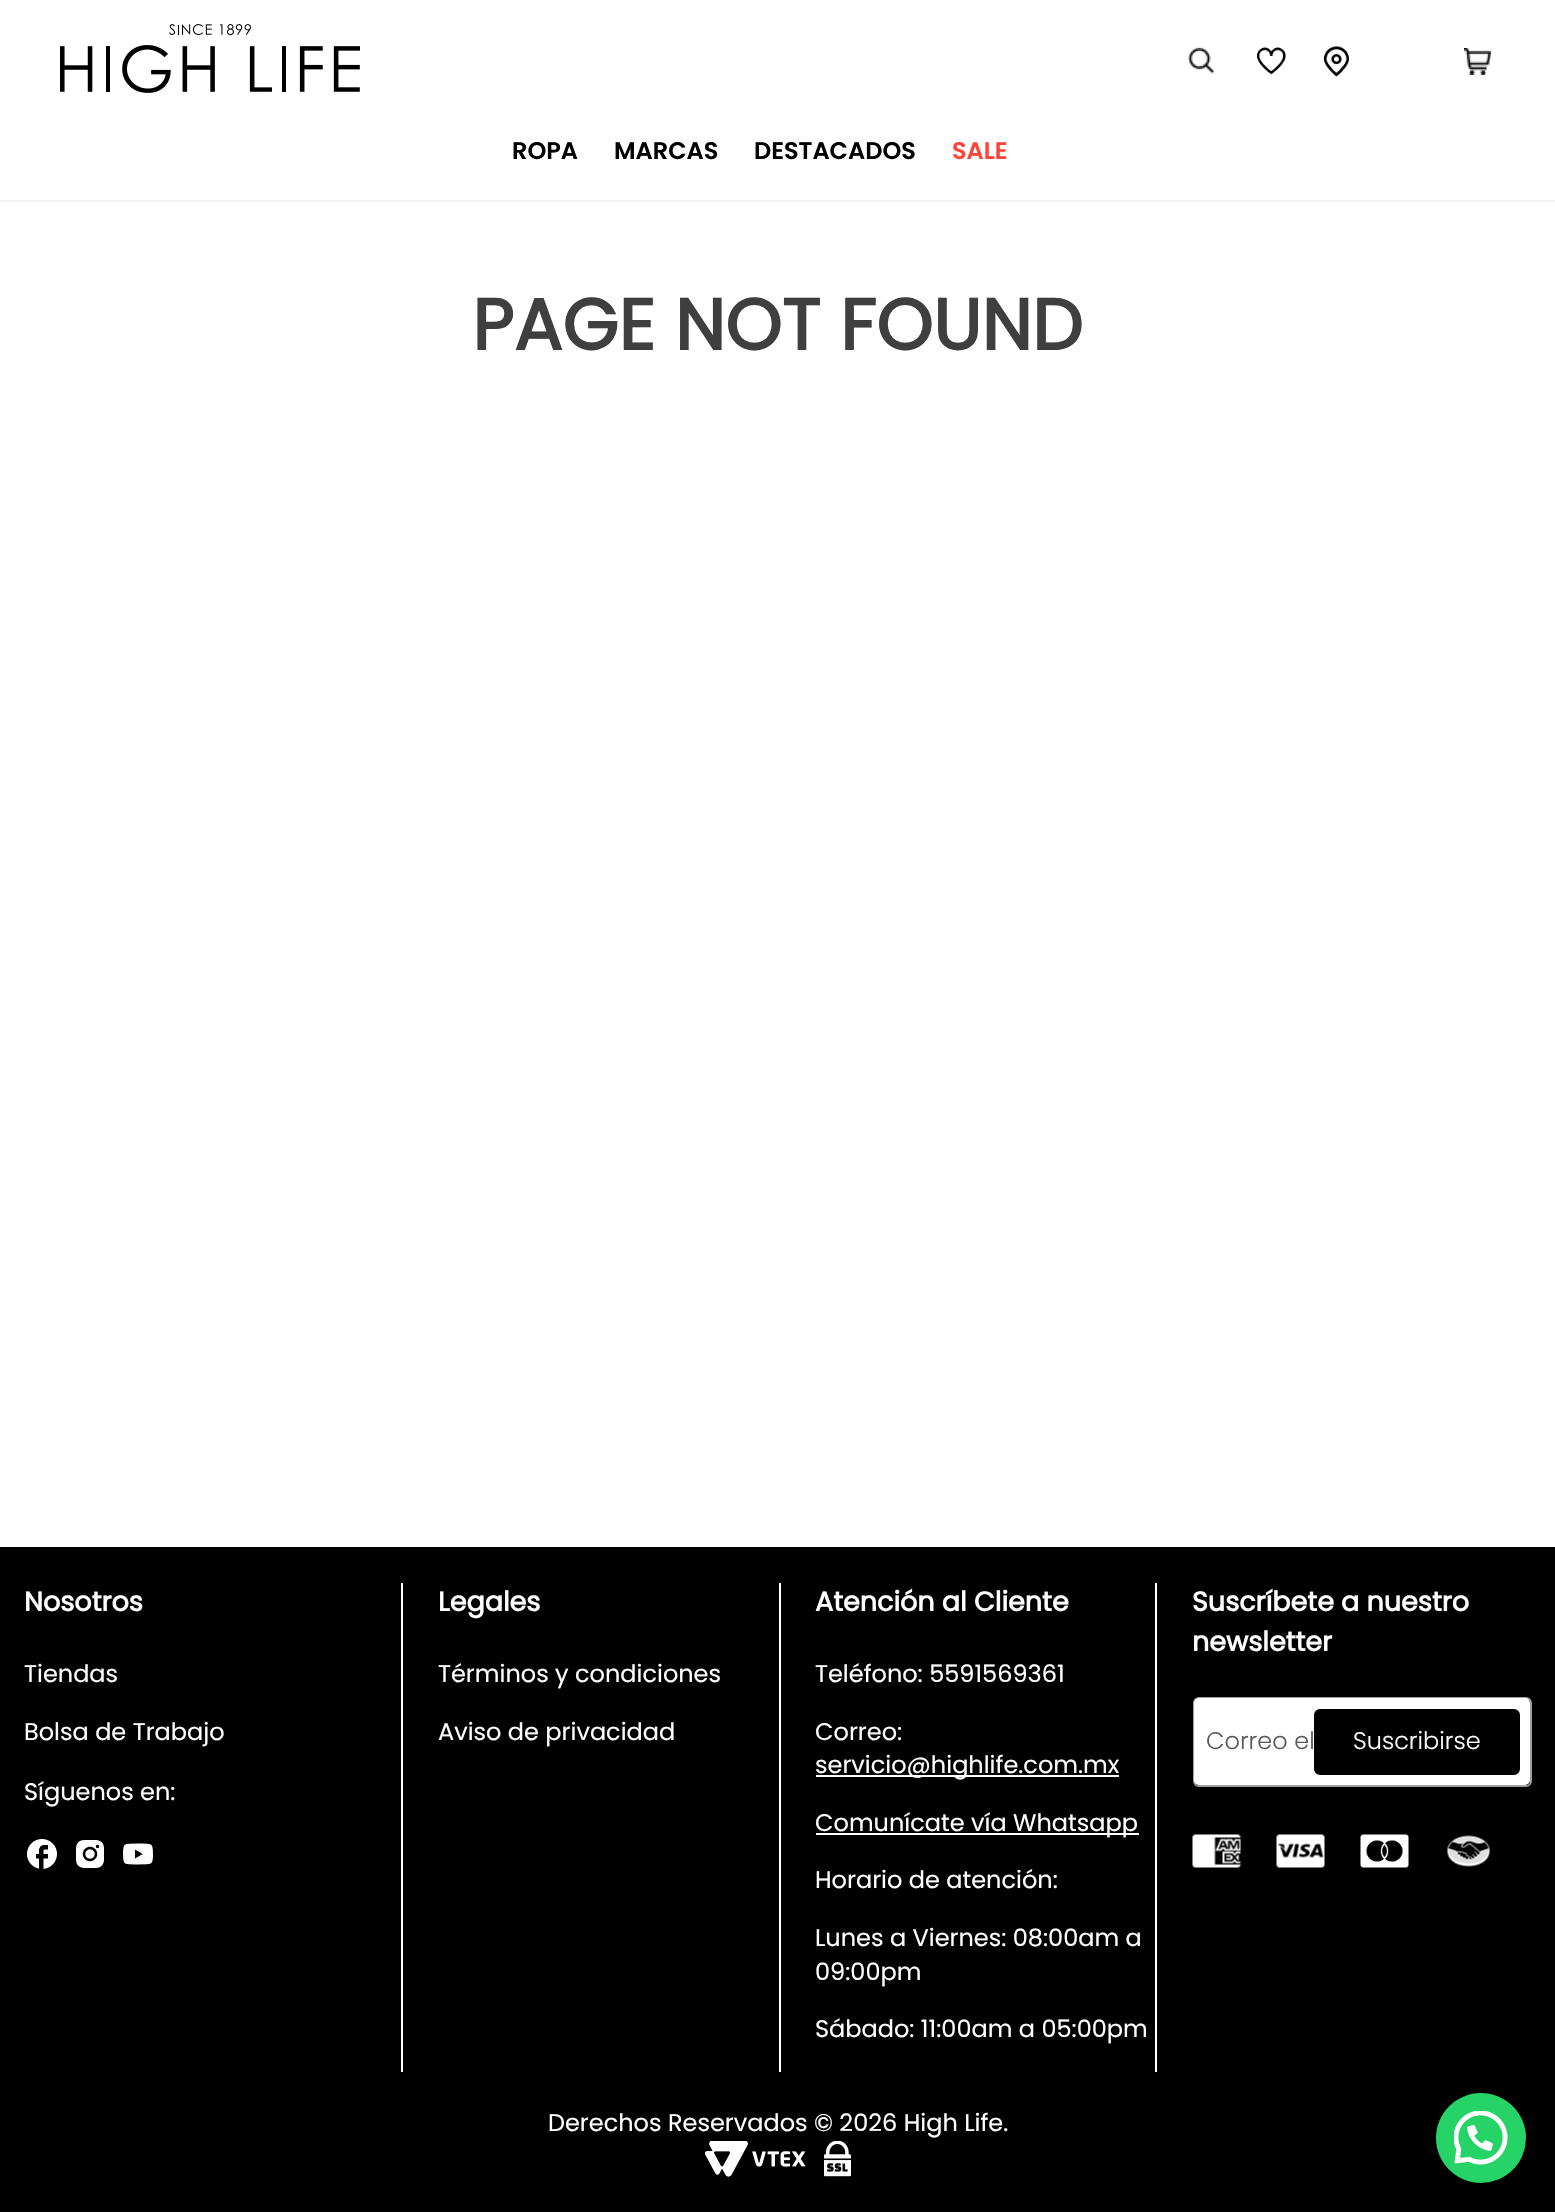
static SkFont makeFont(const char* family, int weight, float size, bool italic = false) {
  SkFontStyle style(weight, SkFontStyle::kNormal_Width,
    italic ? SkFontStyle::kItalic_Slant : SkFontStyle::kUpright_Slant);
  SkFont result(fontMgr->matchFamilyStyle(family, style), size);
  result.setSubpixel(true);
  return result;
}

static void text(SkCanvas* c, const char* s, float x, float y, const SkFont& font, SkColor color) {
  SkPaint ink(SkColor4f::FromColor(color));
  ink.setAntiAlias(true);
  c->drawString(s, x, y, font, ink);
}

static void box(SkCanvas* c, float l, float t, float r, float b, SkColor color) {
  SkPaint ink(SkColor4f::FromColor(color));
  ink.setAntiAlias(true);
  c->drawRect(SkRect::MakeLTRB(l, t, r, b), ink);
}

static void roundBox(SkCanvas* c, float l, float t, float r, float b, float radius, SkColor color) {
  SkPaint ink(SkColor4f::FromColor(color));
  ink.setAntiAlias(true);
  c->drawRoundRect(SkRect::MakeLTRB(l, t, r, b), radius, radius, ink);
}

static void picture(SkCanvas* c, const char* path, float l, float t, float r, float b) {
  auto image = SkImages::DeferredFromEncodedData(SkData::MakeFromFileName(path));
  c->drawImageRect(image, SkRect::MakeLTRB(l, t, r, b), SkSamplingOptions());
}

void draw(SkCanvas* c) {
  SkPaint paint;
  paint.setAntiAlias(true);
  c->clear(0xffffffff);
  box(c, 0, 200, 1555, 202, 0xfff3f3f3);
  picture(c, "img_01.png", 60, 24, 360, 93);
  picture(c, "img_02.png", 1187, 47, 1214, 74);
  picture(c, "img_03.png", 1257, 47, 1286, 75);
  picture(c, "img_04.png", 1323, 46, 1349, 77);
  picture(c, "img_05.png", 1464, 48, 1491, 75);
  SkFont face1 = makeFont("Poppins", 600, 24);
  text(c, "ROPA", 512, 159, face1, 0xff000000);
  text(c, "MARCAS", 614, 159, face1, 0xff000000);
  text(c, "DESTACADOS", 754, 159, face1, 0xff000000);
  text(c, "SALE", 952, 159, face1, 0xffff4438);
  SkFont face2 = makeFont("Poppins", 700, 72);
  text(c, "PAGE NOT FOUND", 472, 350, face2, 0xff3f3f40);
  box(c, 0, 1547, 1555, 2212, 0xff000000);
  SkFont face3 = makeFont("Poppins", 700, 27);
  text(c, "Nosotros", 24, 1611, face3, 0xffffffff);
  SkFont face4 = makeFont("Poppins", 400, 24);
  text(c, "Tiendas", 24, 1682, face4, 0xffffffff);
  text(c, "Bolsa de Trabajo", 24, 1740, face4, 0xffffffff);
  text(c, "Síguenos en:", 24, 1800, face4, 0xffffffff);
  picture(c, "img_06.png", 27, 1839, 57, 1869);
  picture(c, "img_07.png", 76, 1840, 104, 1868);
  picture(c, "img_08.png", 123, 1843, 153, 1865);
  box(c, 401, 1583, 403, 2072, 0xffffffff);
  text(c, "Legales", 438, 1611, face3, 0xffffffff);
  text(c, "Términos y condiciones", 438, 1682, face4, 0xffffffff);
  text(c, "Aviso de privacidad", 438, 1740, face4, 0xffffffff);
  box(c, 779, 1583, 781, 2072, 0xffffffff);
  text(c, "Atención al Cliente", 815, 1611, face3, 0xffffffff);
  text(c, "Teléfono: 5591569361", 815, 1682, face4, 0xffffffff);
  text(c, "Correo:", 815, 1740, face4, 0xffffffff);
  box(c, 816, 1775, 1119, 1777, 0xffffffff);
  text(c, "servicio@highlife.com.mx", 815, 1773, face4, 0xffffffff);
  box(c, 816, 1833, 1139, 1835, 0xffffffff);
  text(c, "Comunícate vía Whatsapp", 815, 1831, face4, 0xffffffff);
  text(c, "Horario de atención:", 815, 1888, face4, 0xffffffff);
  text(c, "Lunes a Viernes: 08:00am a", 815, 1946, face4, 0xffffffff);
  text(c, "09:00pm", 815, 1980, face4, 0xffffffff);
  text(c, "Sábado: 11:00am a 05:00pm", 815, 2037, face4, 0xffffffff);
  box(c, 1155, 1583, 1157, 2072, 0xffffffff);
  text(c, "Suscríbete a nuestro", 1192, 1611, face3, 0xffffffff);
  text(c, "newsletter", 1192, 1651, face3, 0xffffffff);
  paint.setStyle(SkPaint::kStroke_Style);
  paint.setStrokeWidth(2);
  paint.setColor(0xffa0a0a0);
  c->drawRoundRect(SkRect::MakeLTRB(1194, 1698, 1531, 1786), 5, 5, paint);
  roundBox(c, 1194, 1698, 1530, 1785, 5, 0xffffffff);
  SkFont face5 = makeFont("Poppins", 300, 24);
  text(c, "Correo el", 1206, 1749, face5, 0xff5a5a5a);
  paint.setStyle(SkPaint::kFill_Style);
  paint.setColor(0xff000000);
  c->drawRoundRect(SkRect::MakeLTRB(1315.5f, 1710.5f, 1518.5f, 1773.5f), 4.5f, 4.5f, paint);
  paint.setStyle(SkPaint::kStroke_Style);
  paint.setStrokeWidth(3);
  c->drawRoundRect(SkRect::MakeLTRB(1315.5f, 1710.5f, 1518.5f, 1773.5f), 4.5f, 4.5f, paint);
  text(c, "Suscribirse", 1353, 1749, face5, 0xffffffff);
  picture(c, "img_09.png", 1192, 1834, 1241, 1868);
  picture(c, "img_10.png", 1276, 1834, 1325, 1868);
  picture(c, "img_11.png", 1360, 1834, 1409, 1868);
  picture(c, "img_12.png", 1447, 1835, 1490, 1867);
  text(c, "Derechos Reservados © 2026 High Life.", 548, 2131, face4, 0xffffffff);
  picture(c, "img_13.png", 705, 2141, 806, 2177);
  picture(c, "img_14.png", 824, 2141, 851, 2177);
  paint.setStyle(SkPaint::kFill_Style);
  paint.setColor(0xff25d366);
  c->drawCircle(1481, 2138, 45, paint);
  picture(c, "img_15.png", 1454, 2111, 1508, 2165);
}
